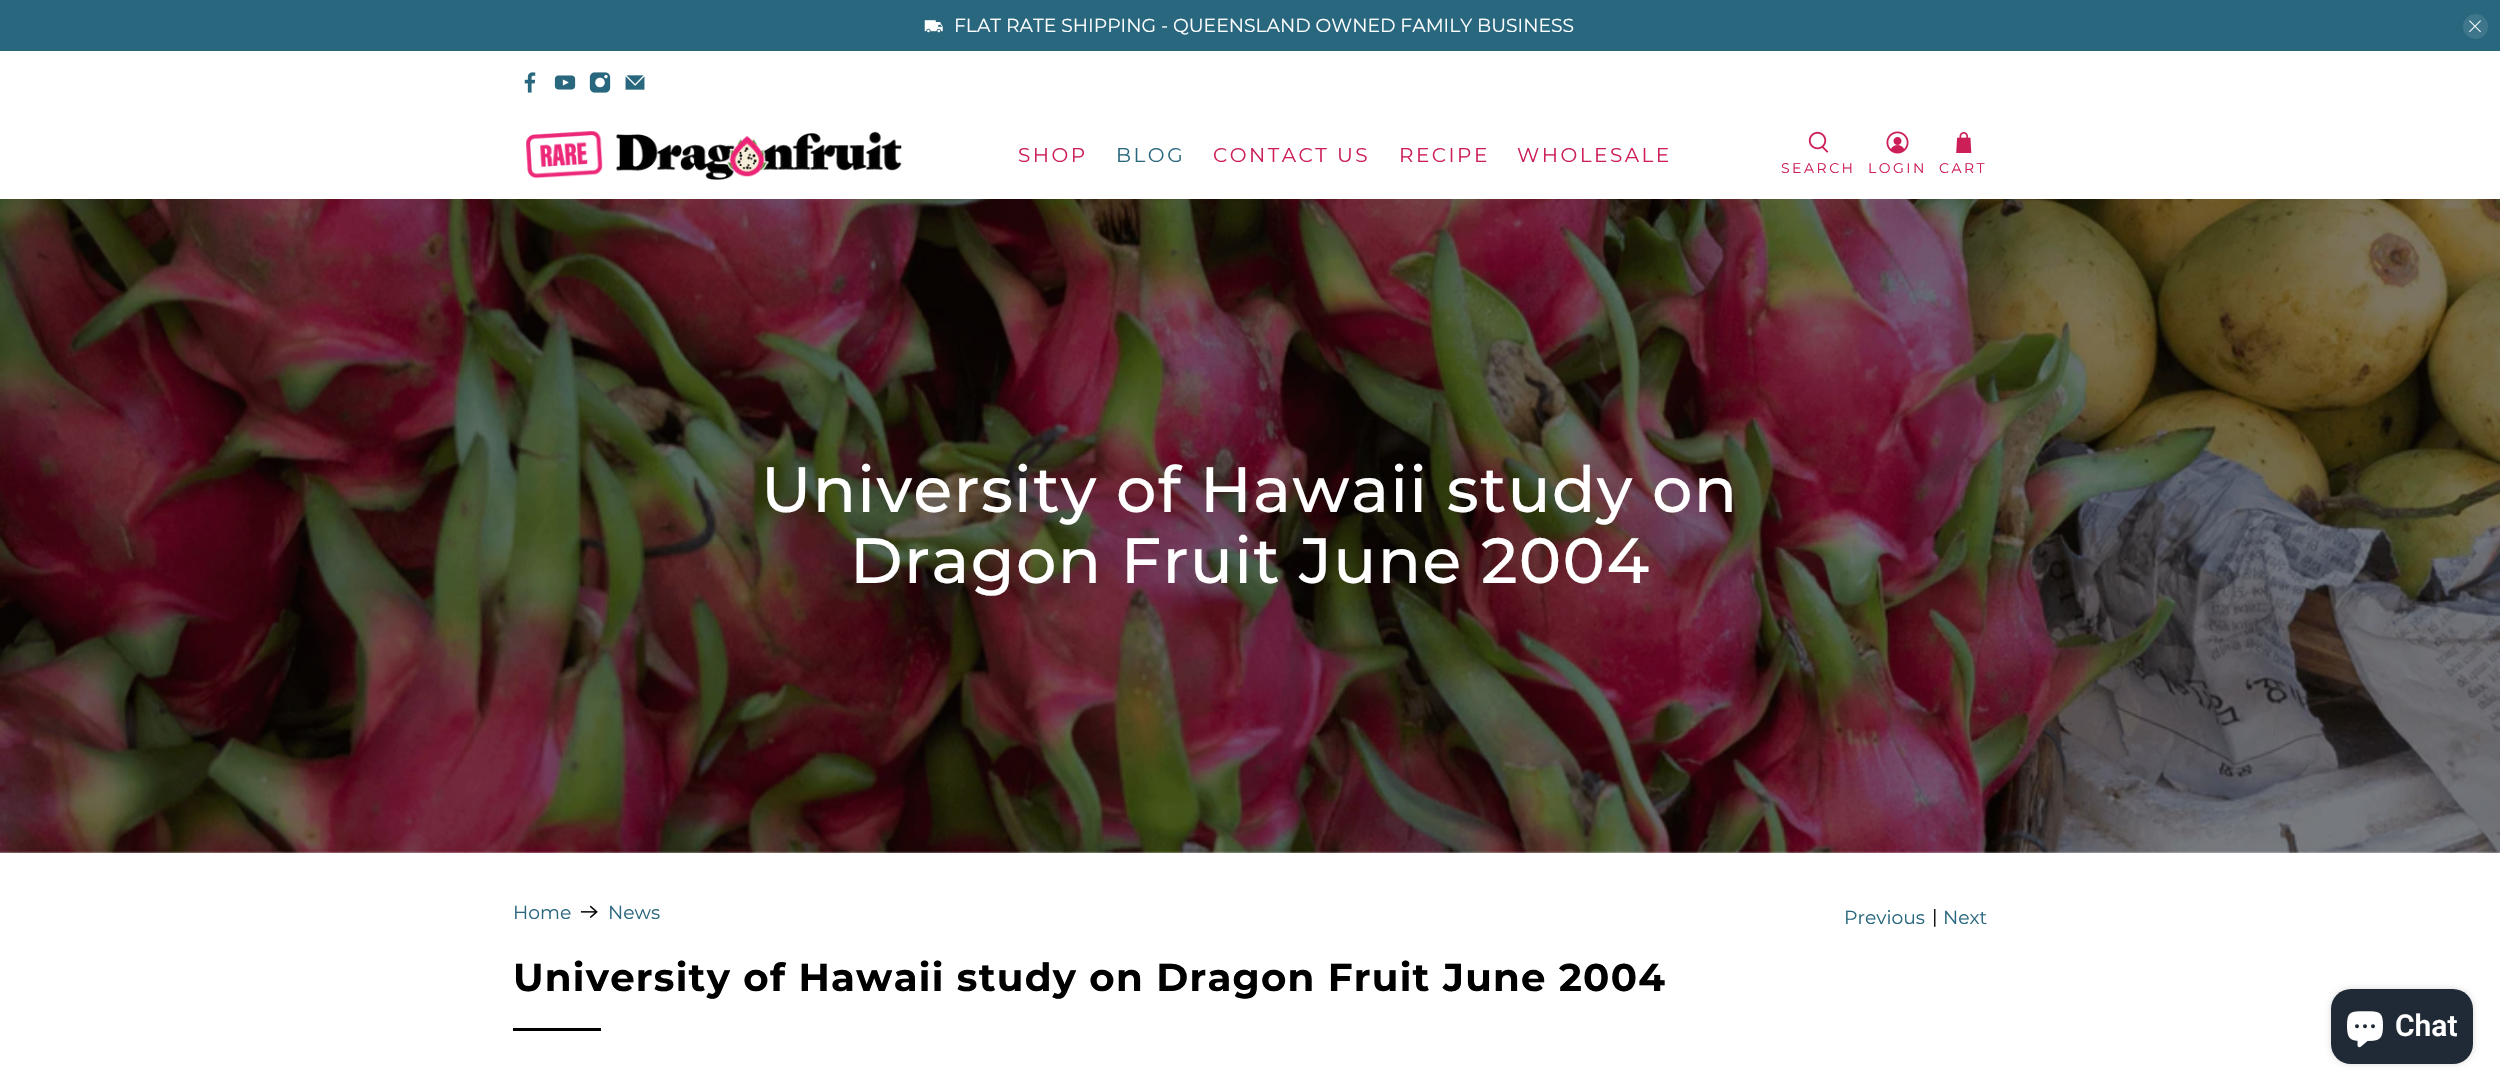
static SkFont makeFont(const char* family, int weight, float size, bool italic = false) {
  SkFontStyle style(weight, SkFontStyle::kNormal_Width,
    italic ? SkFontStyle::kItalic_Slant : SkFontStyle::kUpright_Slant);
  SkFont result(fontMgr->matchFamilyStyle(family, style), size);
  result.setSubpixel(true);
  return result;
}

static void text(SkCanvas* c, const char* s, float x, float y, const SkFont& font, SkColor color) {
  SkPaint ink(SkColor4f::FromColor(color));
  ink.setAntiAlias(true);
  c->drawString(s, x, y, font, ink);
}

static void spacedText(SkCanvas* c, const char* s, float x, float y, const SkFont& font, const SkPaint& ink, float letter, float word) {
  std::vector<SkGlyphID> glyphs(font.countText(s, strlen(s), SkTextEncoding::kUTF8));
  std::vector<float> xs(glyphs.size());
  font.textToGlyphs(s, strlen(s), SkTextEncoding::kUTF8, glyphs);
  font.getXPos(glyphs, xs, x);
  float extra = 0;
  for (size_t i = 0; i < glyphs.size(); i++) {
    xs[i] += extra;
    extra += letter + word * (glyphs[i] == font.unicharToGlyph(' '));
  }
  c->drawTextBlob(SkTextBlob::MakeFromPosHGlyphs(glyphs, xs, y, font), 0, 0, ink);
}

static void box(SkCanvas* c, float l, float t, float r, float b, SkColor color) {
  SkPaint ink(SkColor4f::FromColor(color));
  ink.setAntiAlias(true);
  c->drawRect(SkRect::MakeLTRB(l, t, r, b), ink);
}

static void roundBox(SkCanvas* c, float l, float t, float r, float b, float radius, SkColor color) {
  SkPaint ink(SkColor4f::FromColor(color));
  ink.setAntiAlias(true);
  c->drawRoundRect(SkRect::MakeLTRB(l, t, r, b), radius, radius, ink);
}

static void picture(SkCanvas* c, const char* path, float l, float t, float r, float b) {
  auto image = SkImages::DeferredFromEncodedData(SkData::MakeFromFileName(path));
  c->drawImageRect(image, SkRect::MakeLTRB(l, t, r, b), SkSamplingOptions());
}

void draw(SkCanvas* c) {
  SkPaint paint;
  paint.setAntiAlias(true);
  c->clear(0xffffffff);
  box(c, 0, 0, 2500, 51, 0xff29677e);
  picture(c, "img_01.png", 924, 20, 943, 33);
  SkFont face1 = makeFont("Montserrat", 400, 18.75f);
  text(c, "FLAT RATE SHIPPING - QUEENSLAND OWNED FAMILY BUSINESS", 954, 32, face1, 0xffffffff);
  paint.setColor(0xff3e768b);
  c->drawCircle(2475.5f, 26.5f, 12.5f, paint);
  picture(c, "img_02.png", 2469, 20, 2481, 33);
  picture(c, "img_03.png", 524, 72, 536, 93);
  picture(c, "img_04.png", 554, 75, 576, 90);
  picture(c, "img_05.png", 589, 72, 611, 93);
  picture(c, "img_06.png", 625, 75, 645, 90);
  picture(c, "img_07.png", 526, 131, 902, 180);
  SkFont face2 = makeFont("Montserrat", 400, 20);
  paint.setColor(0xffcc1f58);
  spacedText(c, "SHOP", 1018, 162, face2, paint, 2.5f, 0);
  paint.setColor(0xff29677e);
  spacedText(c, "BLOG", 1116, 162, face2, paint, 2.5f, 0);
  paint.setColor(0xffcc1f58);
  spacedText(c, "CONTACT US", 1213, 162, face2, paint, 2.5f, 0);
  spacedText(c, "RECIPE", 1399, 162, face2, paint, 2.5f, 0);
  spacedText(c, "WHOLESALE", 1517, 162, face2, paint, 2.5f, 0);
  picture(c, "img_08.png", 1808, 131, 1829, 153);
  SkFont face3 = makeFont("Montserrat", 400, 14);
  spacedText(c, "SEARCH", 1781, 173, face3, paint, 2.5f, 0);
  picture(c, "img_09.png", 1886, 131, 1909, 154);
  spacedText(c, "LOGIN", 1868, 173, face3, paint, 2.5f, 0);
  picture(c, "img_10.png", 1956, 132, 1972, 153);
  spacedText(c, "CART", 1939, 173, face3, paint, 2.5f, 0);
  picture(c, "img_11.png", 0, 199, 2500, 853);
  SkFont face4 = makeFont("Montserrat", 500, 63.75f);
  paint.setColor(0xffffffff);
  spacedText(c, "University of Hawaii study on", 761, 512, face4, paint, 1.25f, 0);
  spacedText(c, "Dragon Fruit June 2004", 850, 583, face4, paint, 1.25f, 0);
  text(c, "Home", 513, 919, face1, 0xff29677e);
  picture(c, "img_12.png", 580, 905, 598, 918);
  text(c, "News", 608, 919, face1, 0xff29677e);
  text(c, "Previous", 1844, 924, face1, 0xff29677e);
  text(c, "|", 1932, 923, face1, 0xff000000);
  text(c, "Next", 1943, 924, face1, 0xff29677e);
  SkFont face5 = makeFont("Montserrat", 700, 38.75f);
  paint.setColor(0xff000000);
  spacedText(c, "University of Hawaii study on Dragon Fruit June 2004", 513, 991, face5, paint, 1.25f, 0);
  box(c, 513, 1028, 601, 1031, 0xff000000);
  paint.setColor(0x26000000);
  paint.setMaskFilter(SkMaskFilter::MakeBlur(kNormal_SkBlurStyle, 3));
  c->drawRoundRect(SkRect::MakeLTRB(2331, 989, 2473, 1064), 20, 20, paint);
  paint.setMaskFilter(nullptr);
  roundBox(c, 2331, 989, 2473, 1064, 20, 0xff202a36);
  picture(c, "img_13.png", 2347, 1011, 2383, 1048);
  SkFont face6 = makeFont("Roboto", 600, 30);
  text(c, "Chat", 2395, 1036, face6, 0xffffffff);
}
